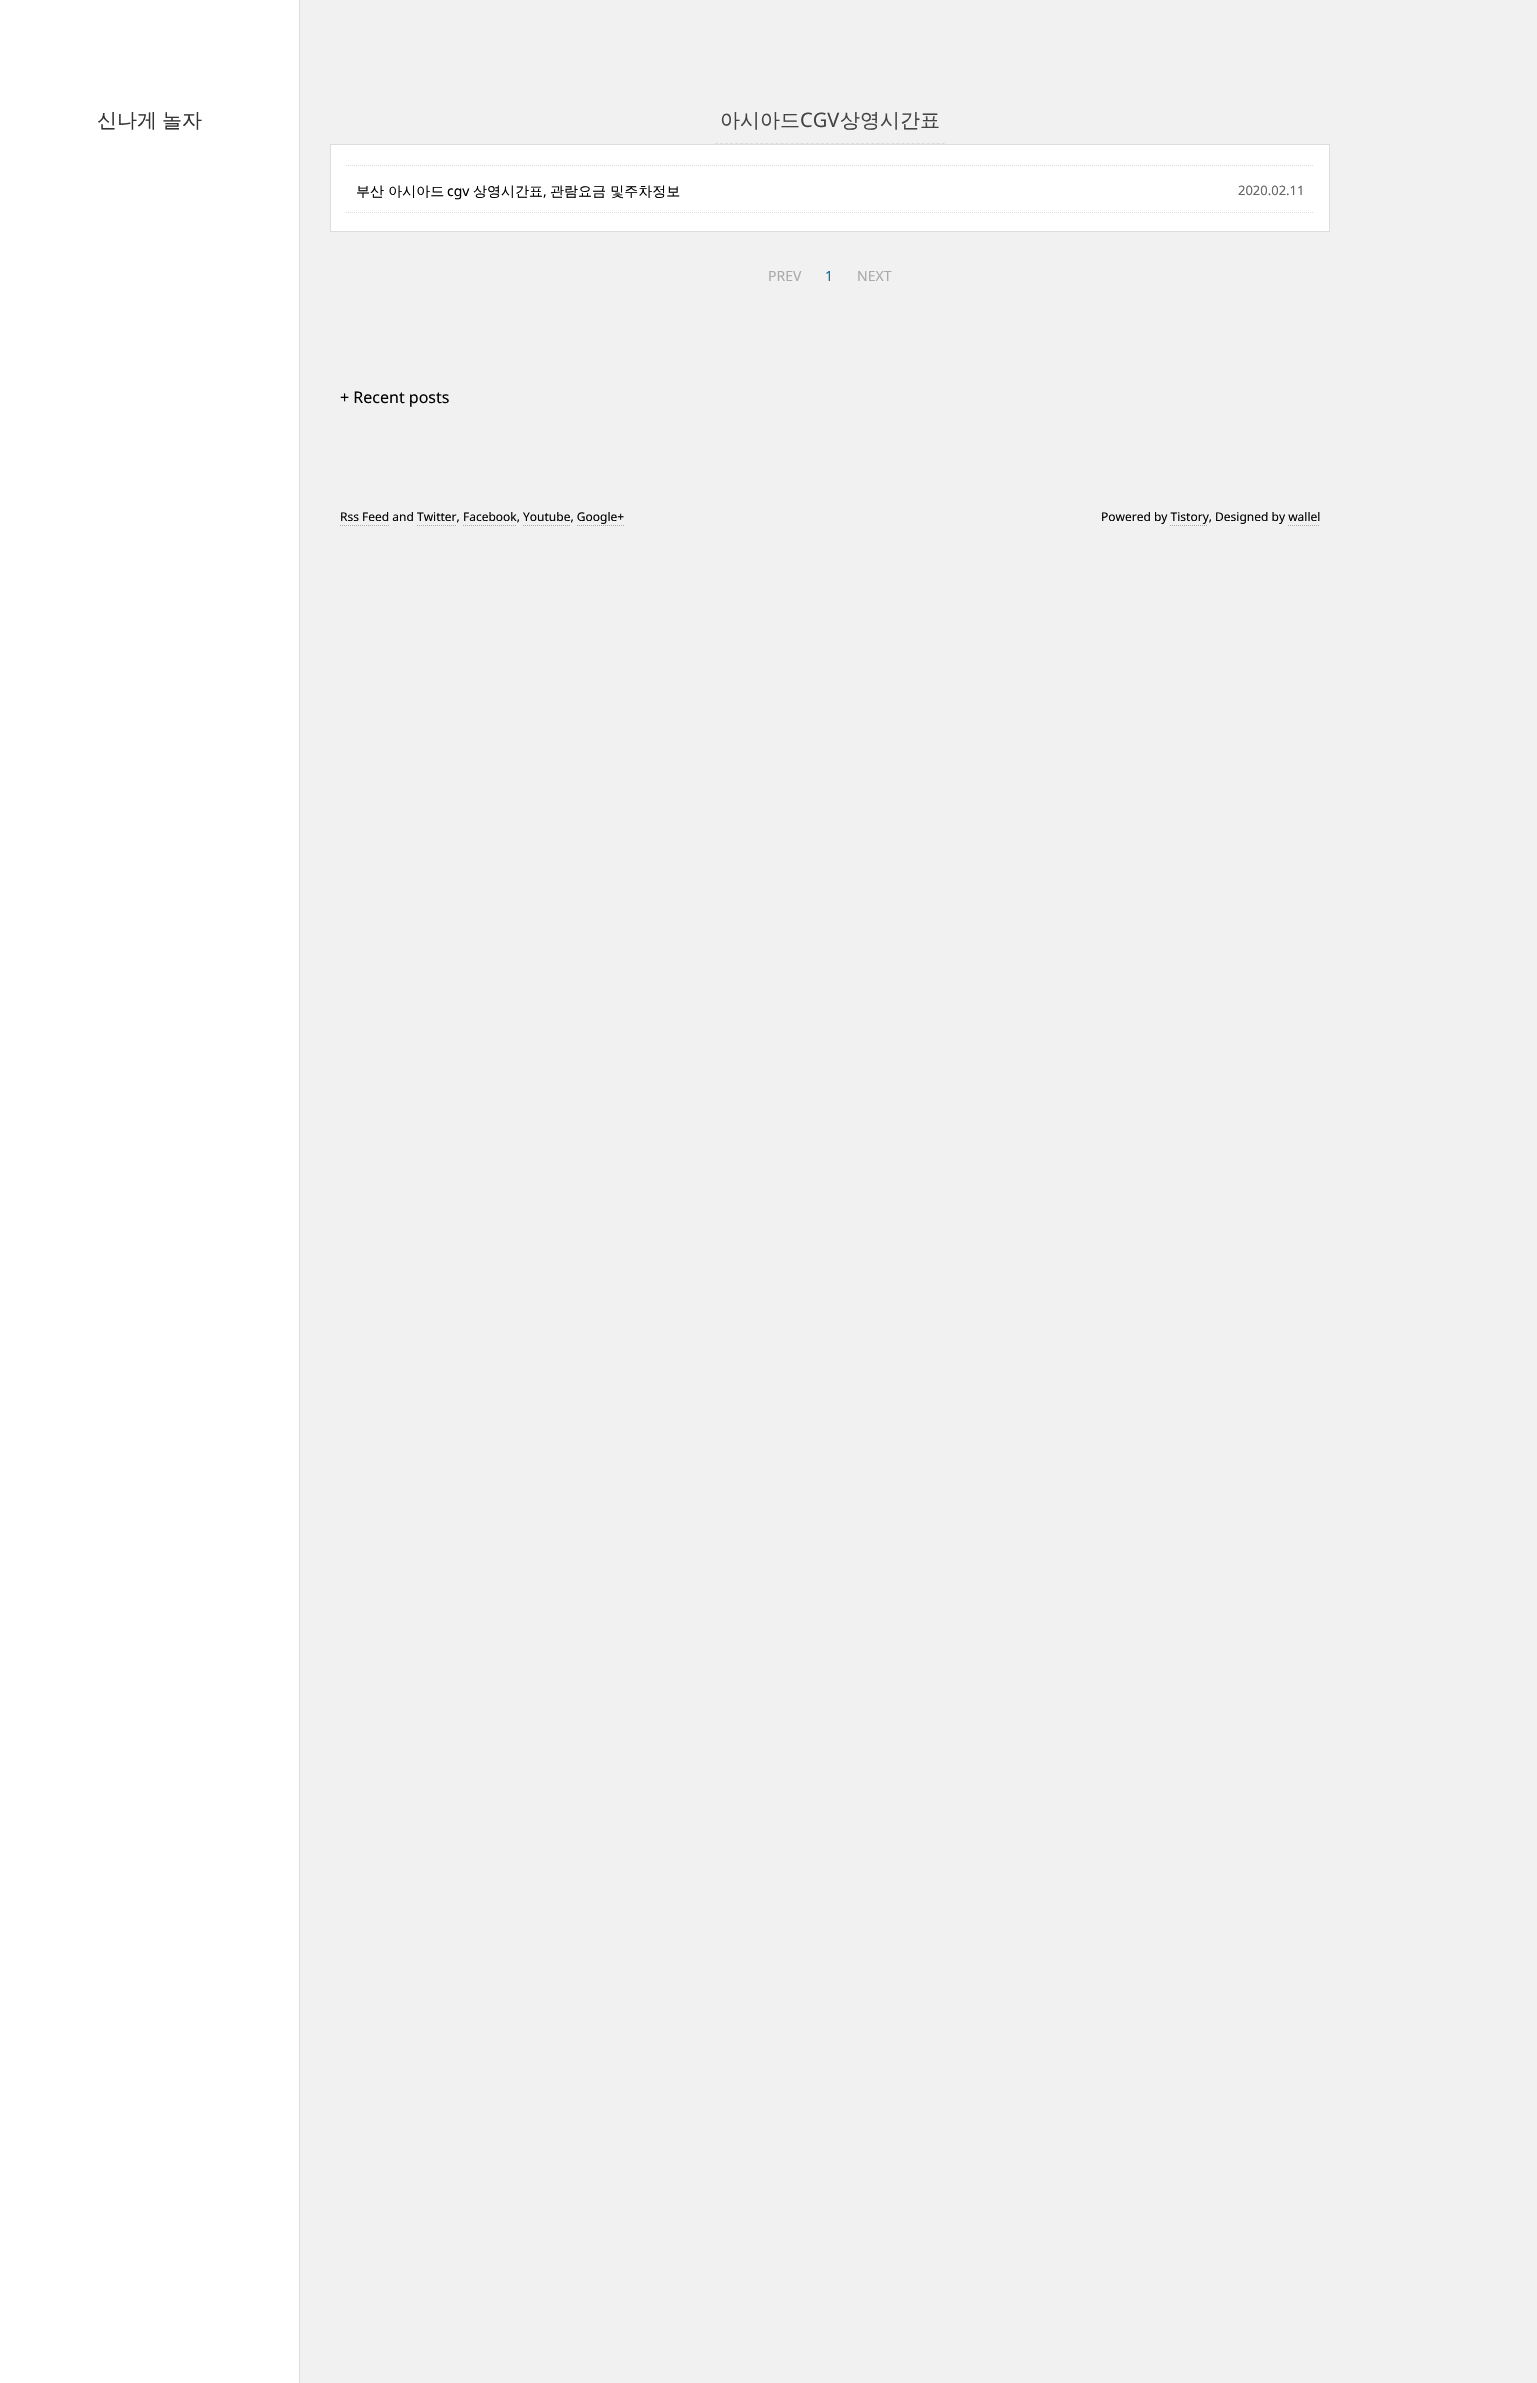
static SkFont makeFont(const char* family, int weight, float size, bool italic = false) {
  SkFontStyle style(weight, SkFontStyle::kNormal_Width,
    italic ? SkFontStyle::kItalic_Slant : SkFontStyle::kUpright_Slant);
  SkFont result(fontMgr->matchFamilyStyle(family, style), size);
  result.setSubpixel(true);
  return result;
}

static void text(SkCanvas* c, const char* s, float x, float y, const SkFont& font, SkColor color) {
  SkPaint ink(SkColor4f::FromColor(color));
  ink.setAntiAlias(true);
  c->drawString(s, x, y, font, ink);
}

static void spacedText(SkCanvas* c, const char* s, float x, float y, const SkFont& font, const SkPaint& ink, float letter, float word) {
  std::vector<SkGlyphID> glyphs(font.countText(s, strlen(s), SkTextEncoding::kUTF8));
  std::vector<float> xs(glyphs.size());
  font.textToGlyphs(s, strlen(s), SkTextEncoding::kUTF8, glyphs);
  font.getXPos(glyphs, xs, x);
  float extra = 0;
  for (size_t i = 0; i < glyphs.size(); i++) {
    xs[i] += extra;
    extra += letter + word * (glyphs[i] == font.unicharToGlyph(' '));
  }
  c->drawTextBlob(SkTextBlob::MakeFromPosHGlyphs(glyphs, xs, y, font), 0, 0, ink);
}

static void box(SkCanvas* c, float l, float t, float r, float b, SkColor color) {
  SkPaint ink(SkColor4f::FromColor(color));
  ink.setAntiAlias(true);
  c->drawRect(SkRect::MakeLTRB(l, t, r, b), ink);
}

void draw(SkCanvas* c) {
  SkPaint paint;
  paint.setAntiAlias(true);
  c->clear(0xfff1f1f1);
  box(c, 0, 0, 299, 2383, 0xffffffff);
  box(c, 299, 0, 300, 2383, 0xffdddddd);
  SkFont face1 = makeFont("WenQuanYi Zen Hei", 500, 20);
  paint.setColor(0xff333333);
  spacedText(c, "신나게 놀자", 97, 127, face1, paint, 0, -1);
  paint.setStyle(SkPaint::kStroke_Style);
  paint.setStrokeWidth(1);
  paint.setColor(0xffdddddd);
  paint.setPathEffect(SkDashPathEffect::Make({{3, 2.04f}}, 0));
  c->drawPath(SkPathBuilder().moveTo(715, 143.5f).lineTo(945, 143.5f).detach(), paint);
  paint.setPathEffect(nullptr);
  text(c, "아시아드", 720, 127, face1, 0xff444444);
  SkFont face2 = makeFont("Noto Sans", 400, 20);
  text(c, "CGV", 800, 127, face2, 0xff444444);
  text(c, "상영시간표", 840, 127, face1, 0xff444444);
  paint.setStyle(SkPaint::kFill_Style);
  paint.setColor(0xffffffff);
  c->drawRect(SkRect::MakeLTRB(330.5f, 144.5f, 1329.5f, 231.5f), paint);
  paint.setStyle(SkPaint::kStroke_Style);
  paint.setColor(0xffdddddd);
  c->drawRect(SkRect::MakeLTRB(330.5f, 144.5f, 1329.5f, 231.5f), paint);
  paint.setPathEffect(SkDashPathEffect::Make({{1, 1}}, 0));
  c->drawPath(SkPathBuilder().moveTo(346, 165.5f).lineTo(1314, 165.5f).detach(), paint);
  paint.setPathEffect(nullptr);
  paint.setPathEffect(SkDashPathEffect::Make({{1, 1}}, 0));
  c->drawPath(SkPathBuilder().moveTo(346, 212.5f).lineTo(1314, 212.5f).detach(), paint);
  paint.setPathEffect(nullptr);
  SkFont face3 = makeFont("WenQuanYi Zen Hei", 500, 14);
  text(c, "부산 아시아드", 356, 196, face3, 0xff000000);
  SkFont face4 = makeFont("Noto Sans", 400, 14);
  text(c, "cgv", 447, 196, face4, 0xff000000);
  text(c, "상영시간표", 473, 196, face3, 0xff000000);
  text(c, ",", 543, 196, face4, 0xff000000);
  text(c, "관람요금 및주차정보", 550, 196, face3, 0xff000000);
  SkFont face5 = makeFont("Noto Sans", 400, 13);
  text(c, "2020.02.11", 1238, 195, face5, 0xff666666);
  text(c, "PREV", 768, 281, face4, 0xffaaaaaa);
  text(c, "1", 825, 281, face4, 0xff0077aa);
  text(c, "NEXT", 857, 281, face4, 0xffaaaaaa);
  SkFont face6 = makeFont("Noto Sans", 400, 16);
  text(c, "+ Recent posts", 340, 403, face6, 0xff000000);
  SkFont face7 = makeFont("Noto Sans", 400, 12);
  text(c, "Rss Feed and Twitter, Facebook, Youtube, Google+", 340, 521, face7, 0xff000000);
  paint.setColor(0xffaaaaaa);
  paint.setPathEffect(SkDashPathEffect::Make({{1, 1}}, 0));
  c->drawPath(SkPathBuilder().moveTo(340, 525.5f).lineTo(389, 525.5f).detach(), paint);
  paint.setPathEffect(nullptr);
  paint.setPathEffect(SkDashPathEffect::Make({{1, 1}}, 0));
  c->drawPath(SkPathBuilder().moveTo(417, 525.5f).lineTo(457, 525.5f).detach(), paint);
  paint.setPathEffect(nullptr);
  paint.setPathEffect(SkDashPathEffect::Make({{1, 1}}, 0));
  c->drawPath(SkPathBuilder().moveTo(463, 525.5f).lineTo(517, 525.5f).detach(), paint);
  paint.setPathEffect(nullptr);
  paint.setPathEffect(SkDashPathEffect::Make({{1, 1}}, 0));
  c->drawPath(SkPathBuilder().moveTo(523, 525.5f).lineTo(570, 525.5f).detach(), paint);
  paint.setPathEffect(nullptr);
  paint.setPathEffect(SkDashPathEffect::Make({{1, 1}}, 0));
  c->drawPath(SkPathBuilder().moveTo(577, 525.5f).lineTo(624, 525.5f).detach(), paint);
  paint.setPathEffect(nullptr);
  text(c, "Powered by Tistory, Designed by wallel", 1101, 521, face7, 0xff000000);
  paint.setPathEffect(SkDashPathEffect::Make({{1, 1}}, 0));
  c->drawPath(SkPathBuilder().moveTo(1170, 525.5f).lineTo(1208, 525.5f).detach(), paint);
  paint.setPathEffect(nullptr);
  paint.setPathEffect(SkDashPathEffect::Make({{1, 1}}, 0));
  c->drawPath(SkPathBuilder().moveTo(1288, 525.5f).lineTo(1320, 525.5f).detach(), paint);
  paint.setPathEffect(nullptr);
}
